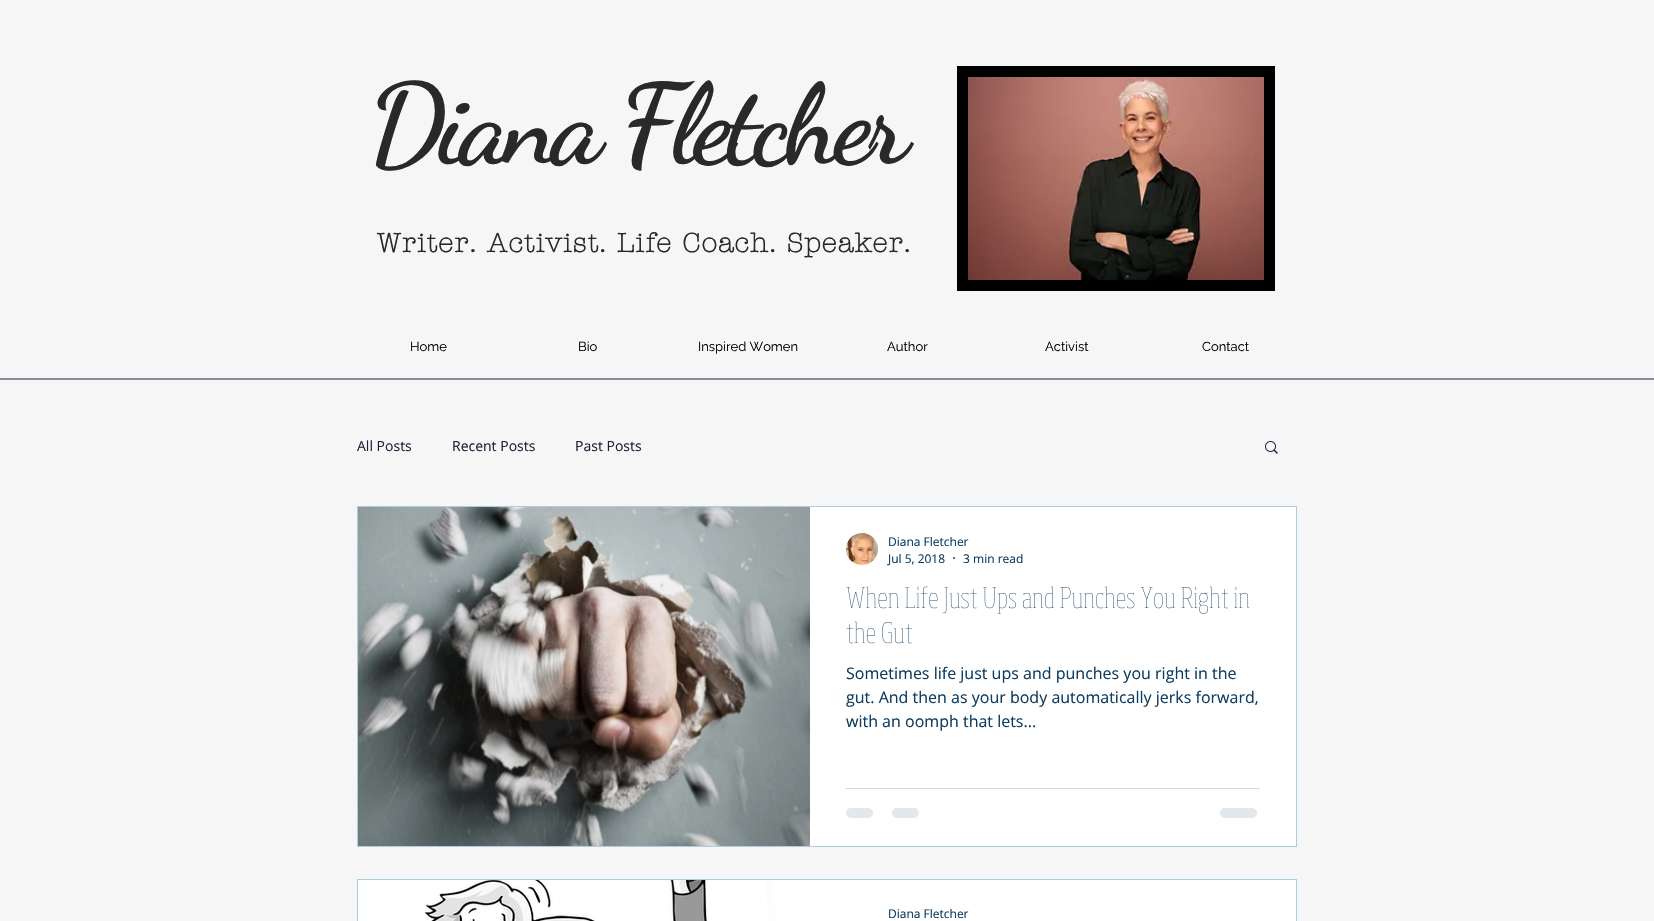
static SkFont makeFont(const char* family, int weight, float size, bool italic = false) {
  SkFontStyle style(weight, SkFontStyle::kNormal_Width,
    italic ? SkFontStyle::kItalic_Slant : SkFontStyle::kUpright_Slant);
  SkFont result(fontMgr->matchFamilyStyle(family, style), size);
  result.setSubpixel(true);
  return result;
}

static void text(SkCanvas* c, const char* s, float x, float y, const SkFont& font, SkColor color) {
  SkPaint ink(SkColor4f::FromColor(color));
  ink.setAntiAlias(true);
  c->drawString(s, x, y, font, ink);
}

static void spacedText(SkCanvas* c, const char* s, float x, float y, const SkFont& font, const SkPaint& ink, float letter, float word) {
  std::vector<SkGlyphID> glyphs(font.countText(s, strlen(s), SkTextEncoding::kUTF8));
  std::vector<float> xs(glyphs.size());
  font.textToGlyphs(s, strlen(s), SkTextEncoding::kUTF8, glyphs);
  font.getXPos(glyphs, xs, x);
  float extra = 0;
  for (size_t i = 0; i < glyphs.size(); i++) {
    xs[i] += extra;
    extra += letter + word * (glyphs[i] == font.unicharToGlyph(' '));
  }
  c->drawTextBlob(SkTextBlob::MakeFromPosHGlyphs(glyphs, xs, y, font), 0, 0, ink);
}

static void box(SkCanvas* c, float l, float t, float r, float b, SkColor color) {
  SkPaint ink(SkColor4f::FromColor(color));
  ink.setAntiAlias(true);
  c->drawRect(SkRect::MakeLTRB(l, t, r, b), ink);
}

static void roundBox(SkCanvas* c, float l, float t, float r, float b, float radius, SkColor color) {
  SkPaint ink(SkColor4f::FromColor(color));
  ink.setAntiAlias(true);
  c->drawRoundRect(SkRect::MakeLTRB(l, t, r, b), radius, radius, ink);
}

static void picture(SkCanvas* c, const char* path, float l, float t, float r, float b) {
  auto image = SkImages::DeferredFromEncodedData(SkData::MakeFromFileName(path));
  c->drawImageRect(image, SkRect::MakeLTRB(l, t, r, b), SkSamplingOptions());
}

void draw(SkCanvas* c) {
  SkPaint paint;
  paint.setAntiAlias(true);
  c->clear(0xfff6f6f6);
  SkFont face1 = makeFont("Dancing Script", 700, 112);
  paint.setColor(0xff292929);
  spacedText(c, "Diana Fletcher", 368, 161, face1, paint, -5.6f, 0);
  box(c, 957, 66, 1275, 291, 0xff000000);
  picture(c, "img_01.png", 968, 77, 1264, 280);
  SkFont face2 = makeFont("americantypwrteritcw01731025", 700, 27);
  spacedText(c, "Writer. Activist. Life Coach. Speaker.", 377, 252, face2, paint, 1.35f, 0);
  SkFont face3 = makeFont("Raleway", 400, 13);
  text(c, "Home", 410, 351, face3, 0xff000000);
  text(c, "Bio", 578, 351, face3, 0xff000000);
  text(c, "Inspired Women", 698, 351, face3, 0xff000000);
  text(c, "Author", 887, 351, face3, 0xff000000);
  text(c, "Activist", 1045, 351, face3, 0xff000000);
  text(c, "Contact", 1202, 351, face3, 0xff000000);
  box(c, 0, 378, 1654, 380, 0xff8f8898);
  SkFont face4 = makeFont("Open Sans", 400, 14);
  text(c, "All Posts", 357, 451, face4, 0xff281a39);
  text(c, "Recent Posts", 452, 451, face4, 0xff281a39);
  text(c, "Past Posts", 575, 451, face4, 0xff281a39);
  picture(c, "img_02.png", 1265, 441, 1278, 454);
  paint.setStyle(SkPaint::kStroke_Style);
  paint.setStrokeWidth(1);
  paint.setColor(0xffafcbe0);
  c->drawRect(SkRect::MakeLTRB(357.5f, 506.5f, 1296.5f, 846.5f), paint);
  picture(c, "img_03.png", 358, 507, 810, 846);
  box(c, 810, 507, 1296, 846, 0xffffffff);
  picture(c, "img_04.png", 846, 533, 878, 565);
  SkFont face5 = makeFont("Open Sans", 400, 12);
  text(c, "Diana Fletcher", 888, 546, face5, 0xff0c3c60);
  text(c, "Jul 5, 2018", 888, 563, face5, 0xff0c3c60);
  paint.setStyle(SkPaint::kFill_Style);
  paint.setColor(0xff0c3c60);
  c->drawCircle(954, 558, 1, paint);
  text(c, "3 min read", 963, 563, face5, 0xff0c3c60);
  picture(c, "img_05.png", 846, 586, 1250, 614);
  picture(c, "img_06.png", 846, 621, 912, 644);
  SkFont face6 = makeFont("Open Sans", 400, 16);
  text(c, "Sometimes life just ups and punches you right in the", 846, 679, face6, 0xff0c3c60);
  text(c, "gut. And then as your body automatically jerks forward,", 846, 703, face6, 0xff0c3c60);
  text(c, "with an oomph that lets...", 846, 727, face6, 0xff0c3c60);
  box(c, 846, 788, 1260, 789, 0xffced8df);
  roundBox(c, 846, 808, 873, 818, 5, 0xffe2e8ec);
  roundBox(c, 892, 808, 919, 818, 5, 0xffe2e8ec);
  roundBox(c, 1220, 808, 1257, 818, 5, 0xffe2e8ec);
  paint.setStyle(SkPaint::kStroke_Style);
  paint.setColor(0xffafcbe0);
  c->drawRect(SkRect::MakeLTRB(357.5f, 879.5f, 1296.5f, 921.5f), paint);
  picture(c, "img_07.png", 358, 880, 767, 921);
  picture(c, "img_08.png", 767, 880, 810, 921);
  box(c, 810, 880, 1296, 921, 0xffffffff);
  text(c, "Diana Fletcher", 888, 918, face5, 0xff0c3c60);
}
